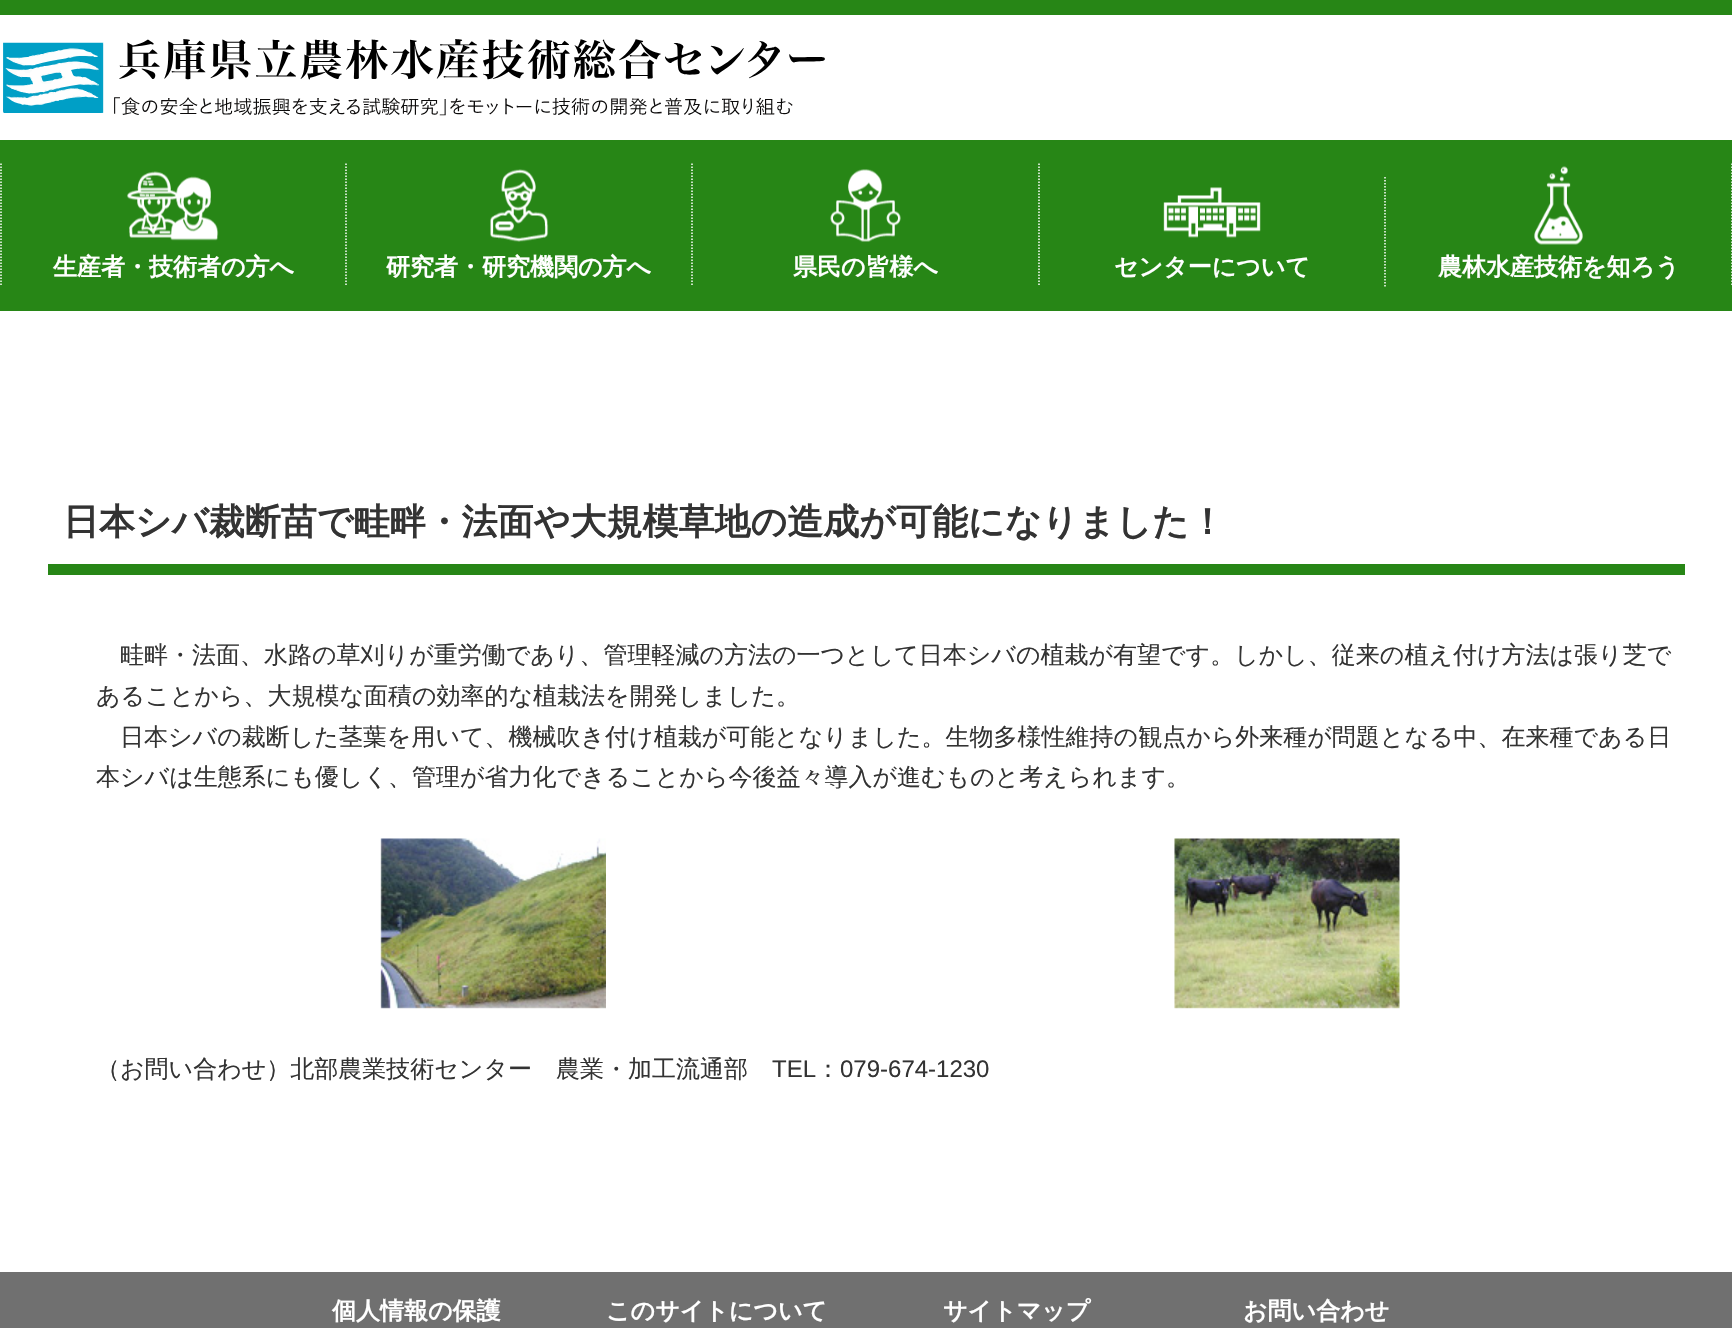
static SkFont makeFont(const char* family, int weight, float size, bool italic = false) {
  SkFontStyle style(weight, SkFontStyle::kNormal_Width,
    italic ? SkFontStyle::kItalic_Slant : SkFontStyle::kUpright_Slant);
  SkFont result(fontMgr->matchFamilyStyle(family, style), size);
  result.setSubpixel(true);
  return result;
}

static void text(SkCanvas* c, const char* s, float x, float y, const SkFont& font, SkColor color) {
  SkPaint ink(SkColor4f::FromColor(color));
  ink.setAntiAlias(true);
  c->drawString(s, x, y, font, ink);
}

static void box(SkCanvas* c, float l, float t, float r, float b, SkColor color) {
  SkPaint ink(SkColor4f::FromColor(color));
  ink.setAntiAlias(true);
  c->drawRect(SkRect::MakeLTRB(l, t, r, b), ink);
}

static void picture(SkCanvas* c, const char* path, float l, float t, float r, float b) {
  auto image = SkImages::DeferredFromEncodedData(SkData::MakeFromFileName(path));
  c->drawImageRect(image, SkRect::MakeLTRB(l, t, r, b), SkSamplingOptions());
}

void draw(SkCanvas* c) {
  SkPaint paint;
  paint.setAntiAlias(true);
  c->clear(0xffffffff);
  box(c, 0, 0, 1732, 15, 0xff278616);
  picture(c, "img_01.png", 3, 39, 825, 116);
  box(c, 0, 140, 1732, 311, 0xff278616);
  paint.setStyle(SkPaint::kStroke_Style);
  paint.setStrokeWidth(1.5f);
  paint.setColor(0xffffffff);
  paint.setPathEffect(SkDashPathEffect::Make({{1.5f, 1.5f}}, 0));
  c->drawPath(SkPathBuilder().moveTo(346, 163.5f).lineTo(346, 286.5f).detach(), paint);
  paint.setPathEffect(nullptr);
  paint.setPathEffect(SkDashPathEffect::Make({{1.5f, 1.5f}}, 0));
  c->drawPath(SkPathBuilder().moveTo(1, 163.5f).lineTo(1, 286.5f).detach(), paint);
  paint.setPathEffect(nullptr);
  picture(c, "img_02.png", 127, 171, 219, 241);
  SkFont face1 = makeFont("WenQuanYi Zen Hei", 700, 24);
  text(c, "生産者・技術者の方へ", 53, 275, face1, 0xffffffff);
  paint.setPathEffect(SkDashPathEffect::Make({{1.5f, 1.5f}}, 0));
  c->drawPath(SkPathBuilder().moveTo(692, 163.5f).lineTo(692, 286.5f).detach(), paint);
  paint.setPathEffect(nullptr);
  picture(c, "img_03.png", 490, 169, 549, 242);
  text(c, "研究者・研究機関の方へ", 386, 275, face1, 0xffffffff);
  paint.setPathEffect(SkDashPathEffect::Make({{1.5f, 1.5f}}, 0));
  c->drawPath(SkPathBuilder().moveTo(1039, 163.5f).lineTo(1039, 286.5f).detach(), paint);
  paint.setPathEffect(nullptr);
  picture(c, "img_04.png", 830, 169, 901, 242);
  text(c, "県民の皆様へ", 793, 275, face1, 0xffffffff);
  paint.setPathEffect(SkDashPathEffect::Make({{1.5f, 1.5f}}, 0));
  c->drawPath(SkPathBuilder().moveTo(1385, 177).lineTo(1385, 286.5f).detach(), paint);
  paint.setPathEffect(nullptr);
  picture(c, "img_05.png", 1163, 187, 1261, 238);
  text(c, "センターについて", 1114, 275, face1, 0xffffffff);
  paint.setPathEffect(SkDashPathEffect::Make({{1.5f, 1.5f}}, 0));
  c->drawPath(SkPathBuilder().moveTo(1732, 163.5f).lineTo(1732, 286.5f).detach(), paint);
  paint.setPathEffect(nullptr);
  picture(c, "img_06.png", 1534, 166, 1583, 245);
  text(c, "農林水産技術を知ろう", 1438, 275, face1, 0xffffffff);
  box(c, 48, 564, 1685, 575, 0xff278616);
  SkFont face2 = makeFont("WenQuanYi Zen Hei", 700, 36);
  text(c, "日本シバ裁断苗で畦畔・法面や大規模草地の造成が可能になりました！", 63, 534, face2, 0xff333333);
  SkFont face3 = makeFont("WenQuanYi Zen Hei", 500, 24);
  text(c, "畦畔・法面、水路の草刈りが重労働であり、管理軽減の方法の一つとして日本シバの植栽が有望です。しかし、従来の植え付け方法は張り芝で", 120, 663, face3, 0xff333333);
  text(c, "あることから、大規模な面積の効率的な植栽法を開発しました。", 96, 704, face3, 0xff333333);
  text(c, "日本シバの裁断した茎葉を用いて、機械吹き付け植栽が可能となりました。生物多様性維持の観点から外来種が問題となる中、在来種である日", 120, 745, face3, 0xff333333);
  text(c, "本シバは生態系にも優しく、管理が省力化できることから今後益々導入が進むものと考えられます。", 96, 785, face3, 0xff333333);
  picture(c, "img_07.png", 380, 838, 606, 1009);
  picture(c, "img_08.png", 1174, 838, 1400, 1009);
  text(c, "（お問い合わせ）北部農業技術センター　農業・加工流通部", 96, 1077, face3, 0xff333333);
  SkFont face4 = makeFont("Liberation Sans", 400, 24);
  text(c, "TEL", 772, 1077, face4, 0xff333333);
  text(c, "：", 816, 1077, face3, 0xff333333);
  text(c, "079-674-1230", 840, 1077, face4, 0xff333333);
  box(c, 0, 1272, 1732, 1328, 0xff707070);
  text(c, "個⼈情報の保護", 332, 1319, face1, 0xffffffff);
  text(c, "このサイトについて", 606, 1319, face1, 0xffffffff);
  text(c, "サイトマップ", 943, 1319, face1, 0xffffffff);
  text(c, "お問い合わせ", 1243, 1319, face1, 0xffffffff);
}
